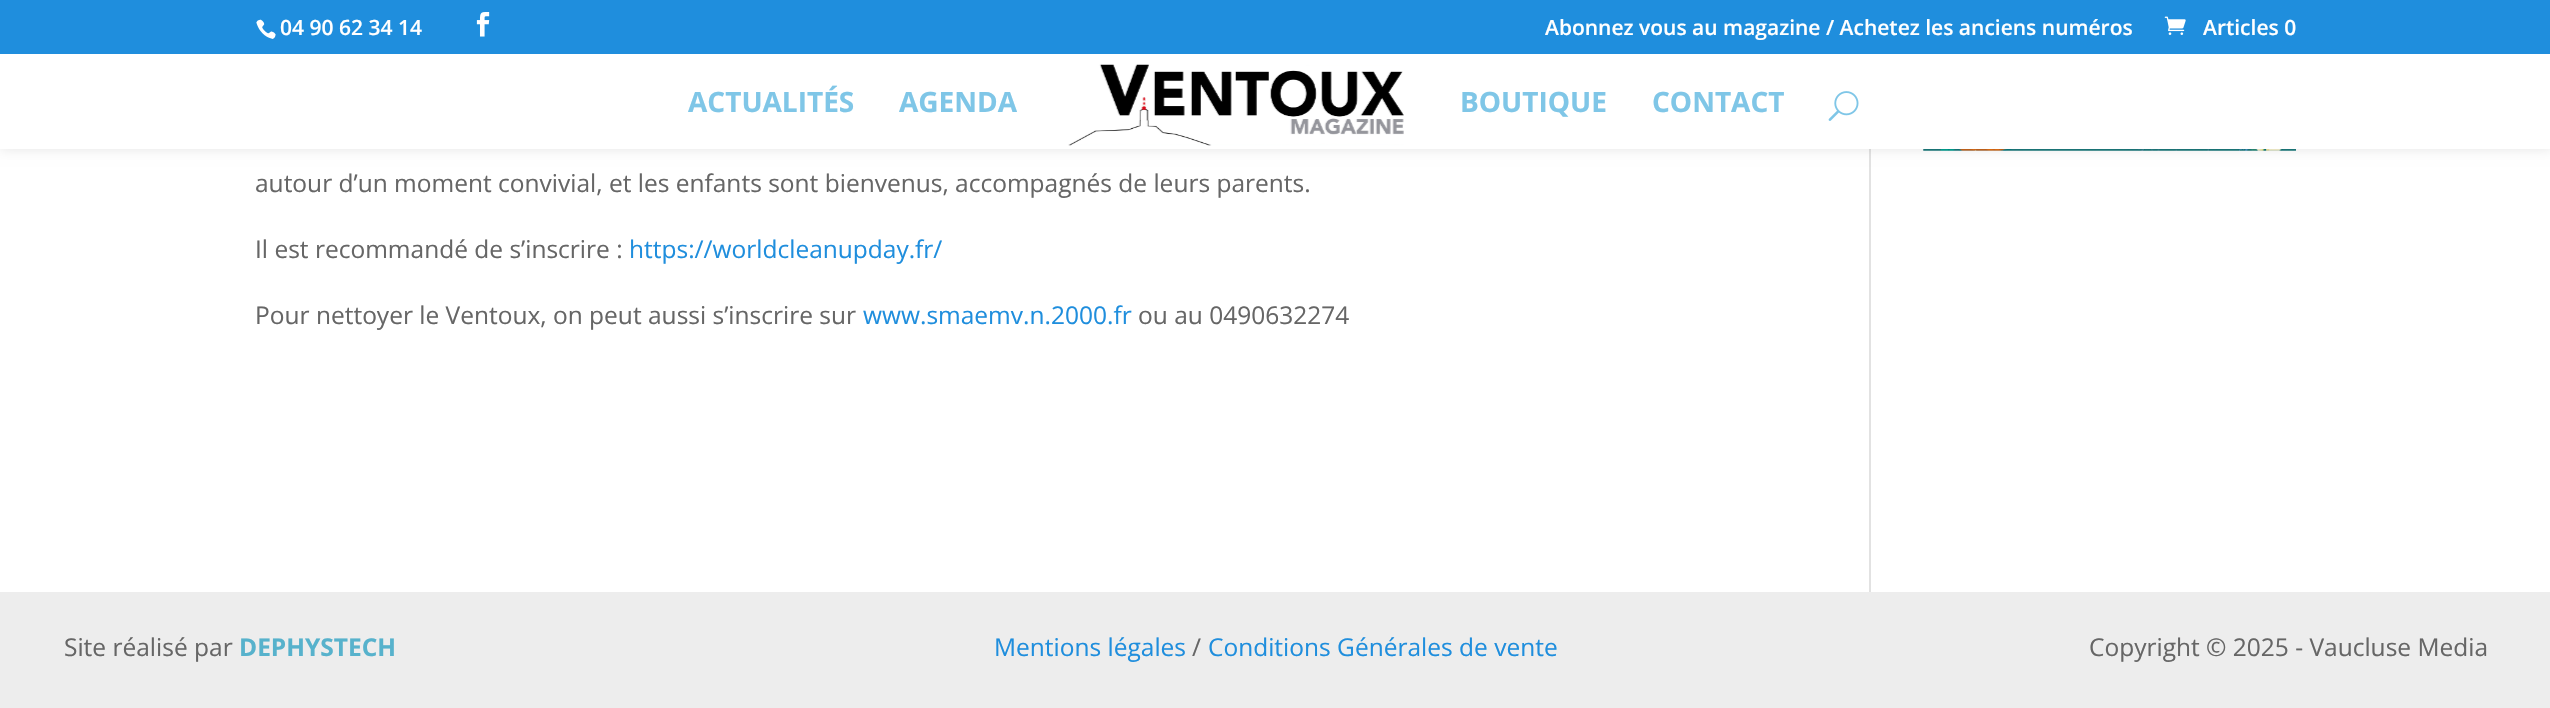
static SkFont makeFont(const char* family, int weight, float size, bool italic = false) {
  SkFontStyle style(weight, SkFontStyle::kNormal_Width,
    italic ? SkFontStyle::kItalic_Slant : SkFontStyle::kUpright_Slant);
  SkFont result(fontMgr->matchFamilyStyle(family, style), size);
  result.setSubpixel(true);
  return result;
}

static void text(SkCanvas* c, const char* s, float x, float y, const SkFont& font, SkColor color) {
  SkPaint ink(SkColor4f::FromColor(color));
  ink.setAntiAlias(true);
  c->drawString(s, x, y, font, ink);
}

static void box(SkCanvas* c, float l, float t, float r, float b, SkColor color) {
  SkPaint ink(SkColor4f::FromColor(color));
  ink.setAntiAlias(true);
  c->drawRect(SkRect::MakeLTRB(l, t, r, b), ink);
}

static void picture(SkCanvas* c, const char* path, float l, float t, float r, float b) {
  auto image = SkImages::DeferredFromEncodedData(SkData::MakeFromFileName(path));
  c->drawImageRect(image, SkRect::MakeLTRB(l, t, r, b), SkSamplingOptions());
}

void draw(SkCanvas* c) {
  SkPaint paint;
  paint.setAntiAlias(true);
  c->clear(0xffffffff);
  picture(c, "img_06.png", 1923, 149, 2296, 151);
  box(c, 1869, 149, 1871, 592, 0xffe2e2e2);
  paint.setColor(0x1a000000);
  paint.setMaskFilter(SkMaskFilter::MakeBlur(kNormal_SkBlurStyle, 6));
  c->drawRect(SkRect::MakeLTRB(0, 54, 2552, 149), paint);
  paint.setMaskFilter(nullptr);
  box(c, 0, 0, 2550, 54, 0xff1f8edd);
  picture(c, "img_01.png", 256, 19, 276, 39);
  SkFont face1 = makeFont("Open Sans", 600, 21);
  text(c, "04 90 62 34 14", 280, 35, face1, 0xffffffff);
  picture(c, "img_02.png", 476, 12, 490, 37);
  text(c, "Abonnez vous au magazine / Achetez les anciens numéros", 1545, 35, face1, 0xffffffff);
  picture(c, "img_03.png", 2164, 16, 2186, 35);
  text(c, "Articles 0", 2203, 35, face1, 0xffffffff);
  box(c, 0, 54, 2550, 149, 0xffffffff);
  SkFont face2 = makeFont("Open Sans", 700, 28);
  text(c, "ACTUALITÉS", 688, 112, face2, 0xff7fc6e7);
  text(c, "AGENDA", 899, 112, face2, 0xff7fc6e7);
  picture(c, "img_04.png", 1068, 64, 1404, 146);
  text(c, "BOUTIQUE", 1460, 112, face2, 0xff7fc6e7);
  text(c, "CONTACT", 1652, 112, face2, 0xff7fc6e7);
  picture(c, "img_05.png", 1828, 91, 1859, 121);
  SkFont face3 = makeFont("Open Sans", 400, 24.5f);
  text(c, "autour d’un moment convivial, et les enfants sont bienvenus, accompagnés de leurs parents.", 255, 192, face3, 0xff666666);
  text(c, "Il est recommandé de s’inscrire :", 255, 258, face3, 0xff666666);
  text(c, "https://worldcleanupday.fr/", 629, 258, face3, 0xff1f8edd);
  text(c, "Pour nettoyer le Ventoux, on peut aussi s’inscrire sur", 255, 324, face3, 0xff666666);
  text(c, "www.smaemv.n.2000.fr", 863, 324, face3, 0xff1f8edd);
  text(c, "ou au 0490632274", 1138, 324, face3, 0xff666666);
  box(c, 0, 592, 2550, 708, 0xffededed);
  text(c, "Site réalisé par", 64, 656, face3, 0xff666666);
  SkFont face4 = makeFont("Open Sans", 700, 24.5f);
  text(c, "DEPHYSTECH", 239, 656, face4, 0xff57b2cc);
  text(c, "Mentions légales", 994, 656, face3, 0xff1f8edd);
  text(c, "/", 1192, 656, face3, 0xff666666);
  text(c, "Conditions Générales de vente", 1208, 656, face3, 0xff1f8edd);
  text(c, "Copyright © 2025 - Vaucluse Media", 2089, 656, face3, 0xff666666);
}
